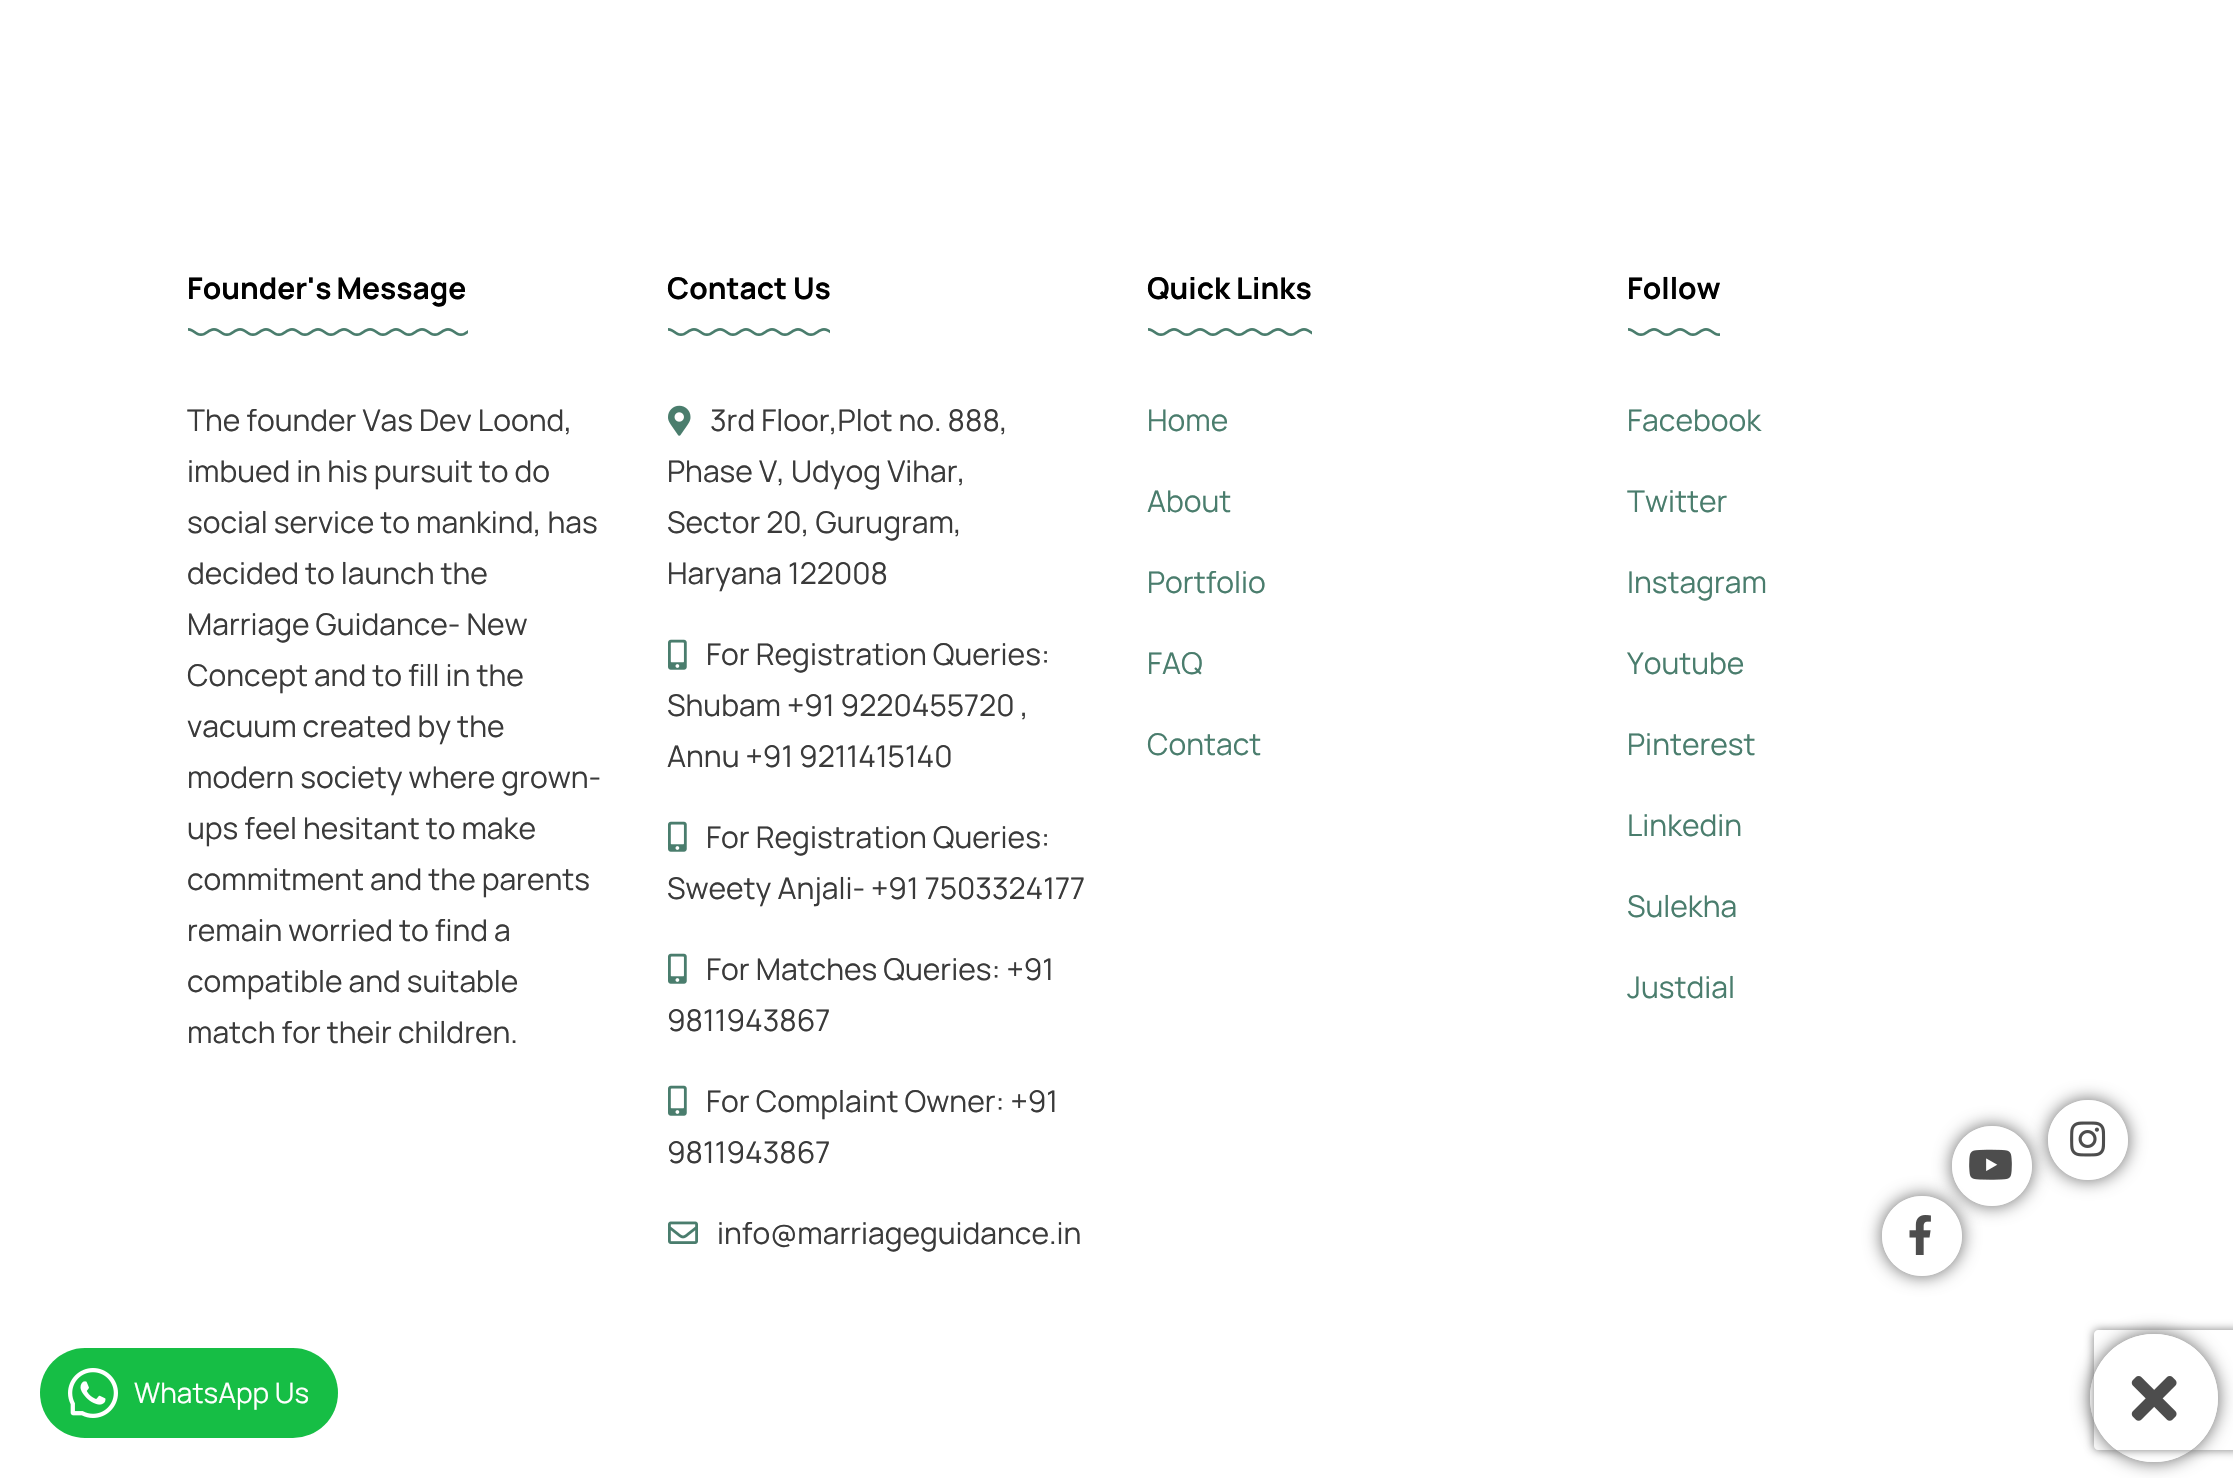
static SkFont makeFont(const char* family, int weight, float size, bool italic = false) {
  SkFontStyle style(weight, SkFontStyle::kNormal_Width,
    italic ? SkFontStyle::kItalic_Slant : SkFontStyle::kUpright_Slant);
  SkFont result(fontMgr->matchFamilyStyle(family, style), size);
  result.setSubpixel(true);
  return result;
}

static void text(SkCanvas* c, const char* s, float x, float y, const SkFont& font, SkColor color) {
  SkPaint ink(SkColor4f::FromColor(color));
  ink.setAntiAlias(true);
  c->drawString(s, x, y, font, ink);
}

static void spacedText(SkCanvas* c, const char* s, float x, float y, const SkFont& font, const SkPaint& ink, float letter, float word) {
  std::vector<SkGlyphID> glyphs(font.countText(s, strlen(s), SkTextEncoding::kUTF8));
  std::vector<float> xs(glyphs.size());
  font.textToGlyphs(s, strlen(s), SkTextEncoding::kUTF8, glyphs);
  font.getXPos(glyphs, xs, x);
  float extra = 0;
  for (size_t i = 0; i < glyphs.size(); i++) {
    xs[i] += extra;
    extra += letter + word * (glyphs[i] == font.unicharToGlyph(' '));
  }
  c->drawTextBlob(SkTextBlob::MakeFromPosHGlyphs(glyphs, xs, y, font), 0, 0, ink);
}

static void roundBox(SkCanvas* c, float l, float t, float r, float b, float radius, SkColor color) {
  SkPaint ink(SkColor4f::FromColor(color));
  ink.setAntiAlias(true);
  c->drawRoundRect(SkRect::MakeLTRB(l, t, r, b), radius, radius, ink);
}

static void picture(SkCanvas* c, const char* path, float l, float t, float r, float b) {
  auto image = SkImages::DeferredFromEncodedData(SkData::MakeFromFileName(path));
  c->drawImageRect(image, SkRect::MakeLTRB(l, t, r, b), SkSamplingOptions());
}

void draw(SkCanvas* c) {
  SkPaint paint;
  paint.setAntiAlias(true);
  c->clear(0xffffffff);
  SkFont face1 = makeFont("Manrope", 700, 30);
  paint.setColor(0xff000000);
  spacedText(c, "Founder's Message", 187, 299, face1, paint, 0, -1);
  picture(c, "img_01.png", 188, 328, 468, 336);
  SkFont face2 = makeFont("Manrope", 400, 30);
  text(c, "The founder Vas Dev Loond,", 187, 431, face2, 0xff3a3a3a);
  text(c, "imbued in his pursuit to do", 187, 482, face2, 0xff3a3a3a);
  text(c, "social service to mankind, has", 187, 533, face2, 0xff3a3a3a);
  text(c, "decided to launch the", 187, 584, face2, 0xff3a3a3a);
  text(c, "Marriage Guidance- New", 187, 635, face2, 0xff3a3a3a);
  text(c, "Concept and to fill in the", 187, 686, face2, 0xff3a3a3a);
  text(c, "vacuum created by the", 187, 737, face2, 0xff3a3a3a);
  text(c, "modern society where grown-", 187, 788, face2, 0xff3a3a3a);
  text(c, "ups feel hesitant to make", 187, 839, face2, 0xff3a3a3a);
  text(c, "commitment and the parents", 187, 890, face2, 0xff3a3a3a);
  text(c, "remain worried to find a", 187, 941, face2, 0xff3a3a3a);
  text(c, "compatible and suitable", 187, 992, face2, 0xff3a3a3a);
  text(c, "match for their children.", 187, 1043, face2, 0xff3a3a3a);
  text(c, "Contact Us", 667, 299, face1, 0xff000000);
  picture(c, "img_02.png", 668, 328, 830, 336);
  picture(c, "img_03.png", 668, 405, 691, 436);
  text(c, "3rd Floor,Plot no. 888,", 710, 431, face2, 0xff3a3a3a);
  text(c, "Phase V, Udyog Vihar,", 667, 482, face2, 0xff3a3a3a);
  text(c, "Sector 20, Gurugram,", 667, 533, face2, 0xff3a3a3a);
  text(c, "Haryana 122008", 667, 584, face2, 0xff3a3a3a);
  picture(c, "img_04.png", 668, 639, 687, 670);
  text(c, "For Registration Queries:", 706, 665, face2, 0xff3a3a3a);
  text(c, "Shubam +91 9220455720 ,", 667, 716, face2, 0xff3a3a3a);
  text(c, "Annu +91 9211415140", 667, 767, face2, 0xff3a3a3a);
  picture(c, "img_04.png", 668, 821, 687, 852);
  text(c, "For Registration Queries:", 706, 848, face2, 0xff3a3a3a);
  text(c, "Sweety Anjali- +91 7503324177", 667, 899, face2, 0xff3a3a3a);
  picture(c, "img_04.png", 668, 953, 687, 984);
  text(c, "For Matches Queries: +91", 706, 980, face2, 0xff3a3a3a);
  text(c, "9811943867", 667, 1031, face2, 0xff3a3a3a);
  picture(c, "img_04.png", 668, 1085, 687, 1116);
  text(c, "For Complaint Owner: +91", 706, 1112, face2, 0xff3a3a3a);
  text(c, "9811943867", 667, 1163, face2, 0xff3a3a3a);
  picture(c, "img_05.png", 668, 1221, 698, 1244);
  text(c, "info@marriageguidance.in", 717, 1244, face2, 0xff3a3a3a);
  text(c, "Quick Links", 1147, 299, face1, 0xff000000);
  picture(c, "img_06.png", 1148, 328, 1312, 336);
  text(c, "Home", 1147, 431, face2, 0xff4a7d6d);
  text(c, "About", 1147, 512, face2, 0xff4a7d6d);
  text(c, "Portfolio", 1147, 593, face2, 0xff4a7d6d);
  text(c, "FAQ", 1147, 674, face2, 0xff4a7d6d);
  text(c, "Contact", 1147, 755, face2, 0xff4a7d6d);
  text(c, "Follow", 1627, 299, face1, 0xff000000);
  picture(c, "img_07.png", 1628, 328, 1720, 336);
  text(c, "Facebook", 1627, 431, face2, 0xff4a7d6d);
  text(c, "Twitter", 1627, 512, face2, 0xff4a7d6d);
  text(c, "Instagram", 1627, 593, face2, 0xff4a7d6d);
  text(c, "Youtube", 1627, 674, face2, 0xff4a7d6d);
  text(c, "Pinterest", 1627, 755, face2, 0xff4a7d6d);
  text(c, "Linkedin", 1627, 836, face2, 0xff4a7d6d);
  text(c, "Sulekha", 1627, 917, face2, 0xff4a7d6d);
  text(c, "Justdial", 1627, 998, face2, 0xff4a7d6d);
  c->save();
  c->clipPath(SkPathBuilder(SkPathFillType::kEvenOdd).moveTo(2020, 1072).lineTo(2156, 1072).lineTo(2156, 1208).lineTo(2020, 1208).close().moveTo(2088, 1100).cubicTo(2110, 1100, 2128, 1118, 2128, 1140).cubicTo(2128, 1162, 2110, 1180, 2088, 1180).cubicTo(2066, 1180, 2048, 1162, 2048, 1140).cubicTo(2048, 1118, 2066, 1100, 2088, 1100).close().detach(), true);
  paint.setColor(0x99000000);
  paint.setMaskFilter(SkMaskFilter::MakeBlur(kNormal_SkBlurStyle, 9));
  c->drawRoundRect(SkRect::MakeLTRB(2048, 1100, 2128, 1180), 40, 40, paint);
  paint.setMaskFilter(nullptr);
  c->restore();
  paint.setColor(0xe6ffffff);
  c->drawCircle(2088, 1140, 40, paint);
  c->save();
  c->clipPath(SkPathBuilder(SkPathFillType::kEvenOdd).moveTo(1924, 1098).lineTo(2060, 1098).lineTo(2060, 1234).lineTo(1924, 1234).close().moveTo(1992, 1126).cubicTo(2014, 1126, 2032, 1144, 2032, 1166).cubicTo(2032, 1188, 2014, 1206, 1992, 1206).cubicTo(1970, 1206, 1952, 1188, 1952, 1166).cubicTo(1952, 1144, 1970, 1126, 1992, 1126).close().detach(), true);
  paint.setColor(0x99000000);
  paint.setMaskFilter(SkMaskFilter::MakeBlur(kNormal_SkBlurStyle, 9));
  c->drawRoundRect(SkRect::MakeLTRB(1952, 1126, 2032, 1206), 40, 40, paint);
  paint.setMaskFilter(nullptr);
  c->restore();
  paint.setColor(0xe6ffffff);
  c->drawCircle(1992, 1166, 40, paint);
  picture(c, "img_09.png", 1969, 1149, 2012, 1180);
  c->save();
  c->clipPath(SkPathBuilder(SkPathFillType::kEvenOdd).moveTo(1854, 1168).lineTo(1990, 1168).lineTo(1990, 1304).lineTo(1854, 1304).close().moveTo(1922, 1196).cubicTo(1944, 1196, 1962, 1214, 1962, 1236).cubicTo(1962, 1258, 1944, 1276, 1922, 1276).cubicTo(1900, 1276, 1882, 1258, 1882, 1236).cubicTo(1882, 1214, 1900, 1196, 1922, 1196).close().detach(), true);
  paint.setColor(0x99000000);
  paint.setMaskFilter(SkMaskFilter::MakeBlur(kNormal_SkBlurStyle, 9));
  c->drawRoundRect(SkRect::MakeLTRB(1882, 1196, 1962, 1276), 40, 40, paint);
  paint.setMaskFilter(nullptr);
  c->restore();
  paint.setColor(0xe6ffffff);
  c->drawCircle(1922, 1236, 40, paint);
  picture(c, "img_08.png", 1909, 1215, 1931, 1255);
  picture(c, "img_10.png", 2070, 1121, 2106, 1157);
  c->save();
  c->clipPath(SkPathBuilder(SkPathFillType::kEvenOdd).moveTo(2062, 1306).lineTo(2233, 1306).lineTo(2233, 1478).lineTo(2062, 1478).close().moveTo(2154, 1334).cubicTo(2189.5f, 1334, 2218, 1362.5f, 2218, 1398).cubicTo(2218, 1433.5f, 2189.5f, 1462, 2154, 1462).cubicTo(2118.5f, 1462, 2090, 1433.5f, 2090, 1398).cubicTo(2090, 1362.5f, 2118.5f, 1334, 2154, 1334).close().detach(), true);
  paint.setColor(0x99000000);
  paint.setMaskFilter(SkMaskFilter::MakeBlur(kNormal_SkBlurStyle, 9));
  c->drawRoundRect(SkRect::MakeLTRB(2090, 1334, 2218, 1462), 64, 64, paint);
  paint.setMaskFilter(nullptr);
  c->restore();
  paint.setColor(0xe6ffffff);
  c->drawCircle(2154, 1398, 64, paint);
  picture(c, "img_11.png", 2131, 1376, 2177, 1421);
  roundBox(c, 40, 1348, 338, 1438, 45, 0xff16be45);
  picture(c, "img_12.png", 68, 1368, 118, 1418);
  SkFont face3 = makeFont("Manrope", 400, 28);
  text(c, "WhatsApp Us", 134, 1403, face3, 0xffffffff);
  c->save();
  c->clipPath(SkPathBuilder(SkPathFillType::kEvenOdd).moveTo(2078, 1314).lineTo(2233, 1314).lineTo(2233, 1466).lineTo(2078, 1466).close().moveTo(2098, 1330).lineTo(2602, 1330).cubicTo(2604, 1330, 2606, 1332, 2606, 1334).lineTo(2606, 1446).cubicTo(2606, 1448, 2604, 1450, 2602, 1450).lineTo(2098, 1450).cubicTo(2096, 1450, 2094, 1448, 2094, 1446).lineTo(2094, 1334).cubicTo(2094, 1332, 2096, 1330, 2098, 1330).close().detach(), true);
  paint.setColor(0xff808080);
  paint.setMaskFilter(SkMaskFilter::MakeBlur(kNormal_SkBlurStyle, 5));
  c->drawRoundRect(SkRect::MakeLTRB(2094, 1330, 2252, 1450), 4, 4, paint);
  paint.setMaskFilter(nullptr);
  c->restore();
}
